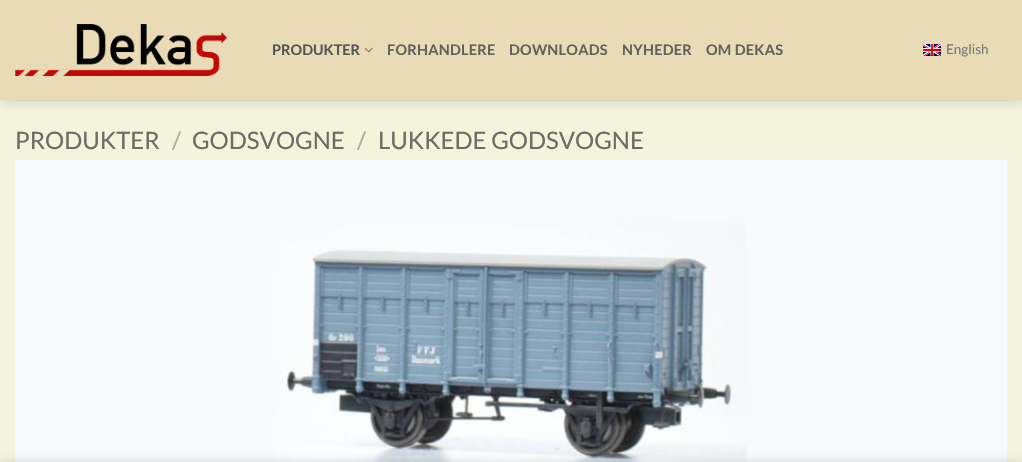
static SkFont makeFont(const char* family, int weight, float size, bool italic = false) {
  SkFontStyle style(weight, SkFontStyle::kNormal_Width,
    italic ? SkFontStyle::kItalic_Slant : SkFontStyle::kUpright_Slant);
  SkFont result(fontMgr->matchFamilyStyle(family, style), size);
  result.setSubpixel(true);
  return result;
}

static void text(SkCanvas* c, const char* s, float x, float y, const SkFont& font, SkColor color) {
  SkPaint ink(SkColor4f::FromColor(color));
  ink.setAntiAlias(true);
  c->drawString(s, x, y, font, ink);
}

static void spacedText(SkCanvas* c, const char* s, float x, float y, const SkFont& font, const SkPaint& ink, float letter, float word) {
  std::vector<SkGlyphID> glyphs(font.countText(s, strlen(s), SkTextEncoding::kUTF8));
  std::vector<float> xs(glyphs.size());
  font.textToGlyphs(s, strlen(s), SkTextEncoding::kUTF8, glyphs);
  font.getXPos(glyphs, xs, x);
  float extra = 0;
  for (size_t i = 0; i < glyphs.size(); i++) {
    xs[i] += extra;
    extra += letter + word * (glyphs[i] == font.unicharToGlyph(' '));
  }
  c->drawTextBlob(SkTextBlob::MakeFromPosHGlyphs(glyphs, xs, y, font), 0, 0, ink);
}

static void box(SkCanvas* c, float l, float t, float r, float b, SkColor color) {
  SkPaint ink(SkColor4f::FromColor(color));
  ink.setAntiAlias(true);
  c->drawRect(SkRect::MakeLTRB(l, t, r, b), ink);
}

static void picture(SkCanvas* c, const char* path, float l, float t, float r, float b) {
  auto image = SkImages::DeferredFromEncodedData(SkData::MakeFromFileName(path));
  c->drawImageRect(image, SkRect::MakeLTRB(l, t, r, b), SkSamplingOptions());
}

void draw(SkCanvas* c) {
  SkPaint paint;
  paint.setAntiAlias(true);
  c->clear(0xfff4f3dc);
  paint.setColor(0x26000000);
  paint.setMaskFilter(SkMaskFilter::MakeBlur(kNormal_SkBlurStyle, 5));
  c->drawRect(SkRect::MakeLTRB(1, 1, 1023, 101), paint);
  paint.setMaskFilter(nullptr);
  box(c, 0, 0, 1022, 100, 0xffe8dbb6);
  picture(c, "img_01.png", 15, 24, 227, 76);
  SkFont face1 = makeFont("Lato", 700, 14.5f);
  text(c, "PRODUKTER", 272, 55, face1, 0xff555555);
  picture(c, "img_02.png", 364, 47, 373, 53);
  paint.setColor(0xff62605a);
  spacedText(c, "FORHANDLERE", 387, 55, face1, paint, 0.25f, 0);
  spacedText(c, "DOWNLOADS", 509, 55, face1, paint, 0.25f, 0);
  spacedText(c, "NYHEDER", 622, 55, face1, paint, 0.25f, 0);
  spacedText(c, "OM DEKAS", 706, 55, face1, paint, 0.25f, 0);
  picture(c, "img_03.png", 923, 44, 941, 56);
  SkFont face2 = makeFont("Lato", 400, 13.5f);
  text(c, "English", 946, 54, face2, 0xff777777);
  box(c, 15, 100, 1007, 101, 0xffd2d1be);
  SkFont face3 = makeFont("Lato", 400, 24);
  text(c, "PRODUKTER", 15, 149, face3, 0xff6c6c67);
  text(c, "/", 172, 149, face3, 0xffaaaa9b);
  text(c, "GODSVOGNE", 192, 149, face3, 0xff6c6c67);
  text(c, "/", 357, 149, face3, 0xffaaaa9b);
  text(c, "LUKKEDE GODSVOGNE", 378, 149, face3, 0xff6c6c67);
  picture(c, "img_04.png", 15, 160, 1007, 462);
  paint.setColor(0x24000000);
  paint.setMaskFilter(SkMaskFilter::MakeBlur(kNormal_SkBlurStyle, 4.5f));
  c->drawRect(SkRect::MakeLTRB(0, 462, 1022, 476), paint);
  paint.setMaskFilter(nullptr);
}
